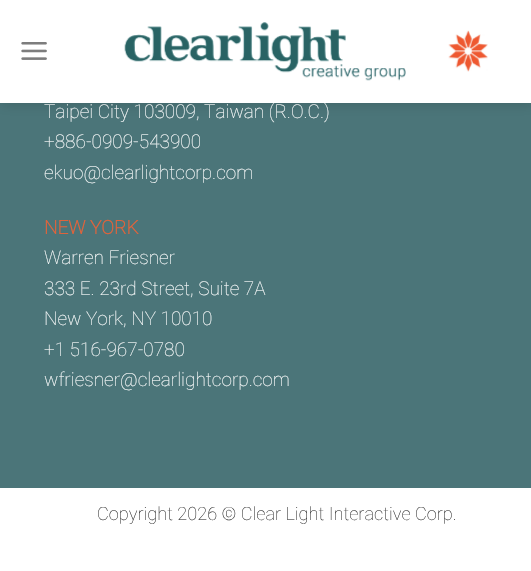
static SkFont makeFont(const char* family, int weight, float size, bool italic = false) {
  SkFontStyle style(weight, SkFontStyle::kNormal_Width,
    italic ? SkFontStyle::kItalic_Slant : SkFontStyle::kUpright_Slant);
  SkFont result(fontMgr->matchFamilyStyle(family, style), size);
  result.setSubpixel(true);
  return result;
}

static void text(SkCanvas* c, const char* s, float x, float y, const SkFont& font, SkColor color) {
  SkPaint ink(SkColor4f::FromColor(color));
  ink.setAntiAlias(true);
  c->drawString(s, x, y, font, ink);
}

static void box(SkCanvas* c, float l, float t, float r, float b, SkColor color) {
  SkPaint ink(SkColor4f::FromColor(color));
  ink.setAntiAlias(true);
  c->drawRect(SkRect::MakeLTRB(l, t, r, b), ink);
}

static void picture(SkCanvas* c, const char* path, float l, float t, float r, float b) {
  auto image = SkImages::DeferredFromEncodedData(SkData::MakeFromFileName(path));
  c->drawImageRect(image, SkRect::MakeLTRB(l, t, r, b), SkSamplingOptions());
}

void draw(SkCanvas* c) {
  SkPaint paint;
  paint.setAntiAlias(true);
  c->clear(0xffffffff);
  box(c, 0, 103, 531, 488, 0xff4b7579);
  paint.setColor(0x26000000);
  paint.setMaskFilter(SkMaskFilter::MakeBlur(kNormal_SkBlurStyle, 6));
  c->drawRect(SkRect::MakeLTRB(1, 1, 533, 104), paint);
  paint.setMaskFilter(nullptr);
  box(c, 0, 0, 531, 103, 0xffffffff);
  picture(c, "img_01.png", 21, 42, 47, 60);
  picture(c, "img_02.png", 124, 22, 406, 81);
  picture(c, "img_03.png", 448, 30, 488, 72);
  SkFont face1 = makeFont("Roboto", 100, 19);
  text(c, "Taipei City 103009, Taiwan (R.O.C.)", 44, 118, face1, 0xffffffff);
  text(c, "+886-0909-543900", 44, 148, face1, 0xffffffff);
  text(c, "ekuo@clearlightcorp.com", 44, 179, face1, 0xffffffff);
  SkFont face2 = makeFont("Roboto", 700, 19);
  text(c, "NEW YORK", 44, 234, face2, 0xffe0633b);
  text(c, "Warren Friesner", 44, 264, face1, 0xffffffff);
  text(c, "333 E. 23rd Street, Suite 7A", 44, 295, face1, 0xffffffff);
  text(c, "New York, NY 10010", 44, 325, face1, 0xffffffff);
  text(c, "+1 516-967-0780", 44, 356, face1, 0xffffffff);
  text(c, "wfriesner@clearlightcorp.com", 44, 386, face1, 0xffffffff);
  SkFont face3 = makeFont("Roboto", 100, 18.2f);
  text(c, "Copyright 2026 © Clear Light Interactive Corp.", 97, 520, face3, 0xff333333);
}
